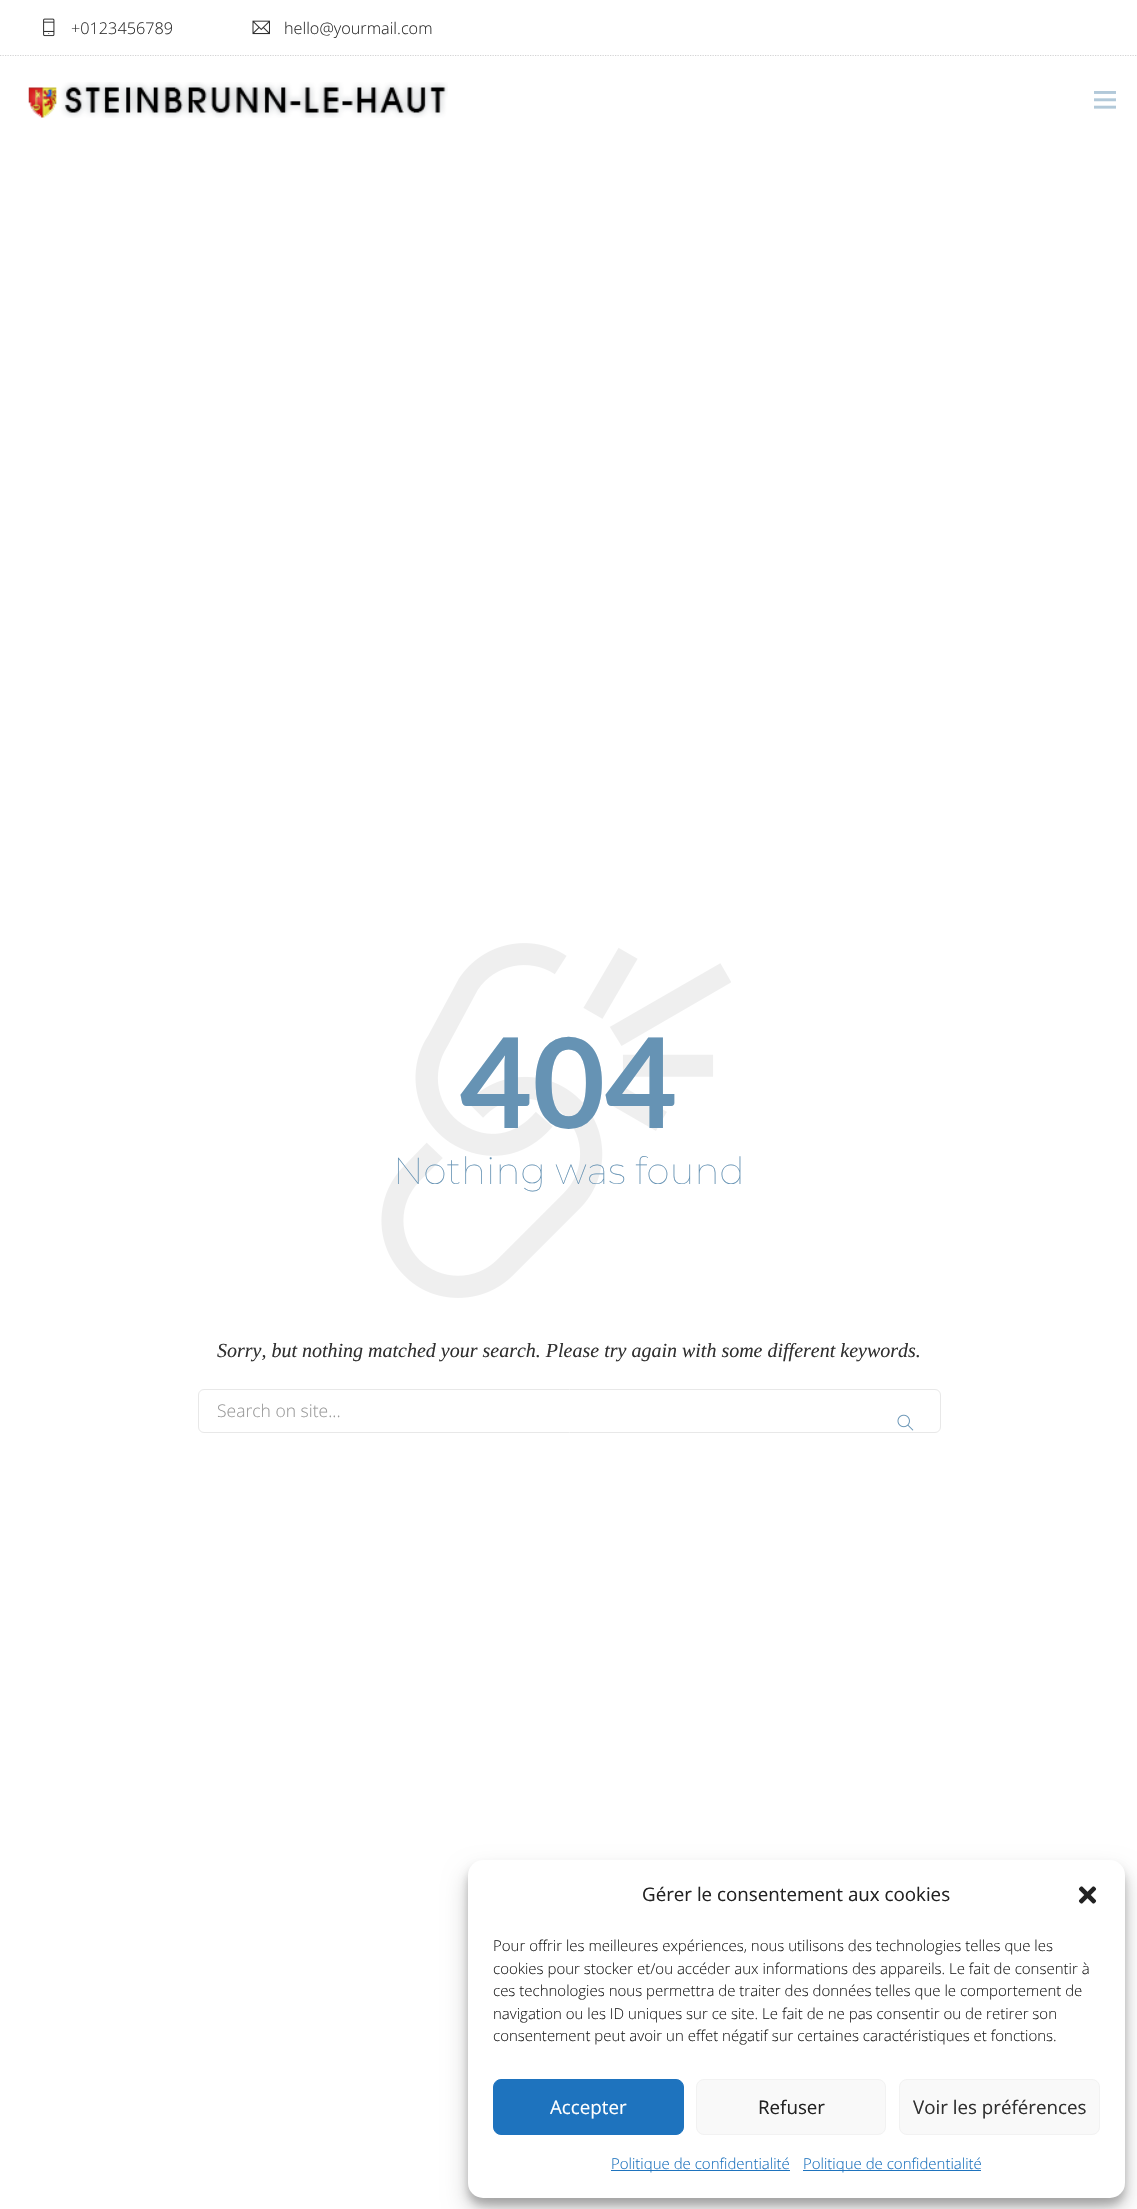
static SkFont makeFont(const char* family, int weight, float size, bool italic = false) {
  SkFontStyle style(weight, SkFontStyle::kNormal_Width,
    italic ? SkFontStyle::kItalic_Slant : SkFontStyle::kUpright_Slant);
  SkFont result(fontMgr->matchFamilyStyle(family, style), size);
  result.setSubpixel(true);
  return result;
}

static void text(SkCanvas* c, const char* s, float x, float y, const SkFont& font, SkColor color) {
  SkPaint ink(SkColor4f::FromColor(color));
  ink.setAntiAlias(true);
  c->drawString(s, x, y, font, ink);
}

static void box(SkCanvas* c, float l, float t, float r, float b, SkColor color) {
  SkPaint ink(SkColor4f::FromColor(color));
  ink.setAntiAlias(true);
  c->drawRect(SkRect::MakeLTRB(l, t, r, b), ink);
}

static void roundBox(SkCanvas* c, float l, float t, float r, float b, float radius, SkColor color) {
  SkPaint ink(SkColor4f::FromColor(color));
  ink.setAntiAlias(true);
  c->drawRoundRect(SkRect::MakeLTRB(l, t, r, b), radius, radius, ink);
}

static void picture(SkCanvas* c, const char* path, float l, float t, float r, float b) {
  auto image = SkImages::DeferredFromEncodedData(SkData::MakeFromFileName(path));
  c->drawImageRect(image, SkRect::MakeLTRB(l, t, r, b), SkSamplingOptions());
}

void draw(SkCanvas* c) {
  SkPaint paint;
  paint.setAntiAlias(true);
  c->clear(0xffffffff);
  paint.setStyle(SkPaint::kStroke_Style);
  paint.setStrokeWidth(1.2f);
  paint.setColor(0xffd4d4d5);
  paint.setPathEffect(SkDashPathEffect::Make({{1.25f, 1.25f}}, 0));
  c->drawPath(SkPathBuilder().moveTo(0, 55.5f).lineTo(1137.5f, 55.5f).detach(), paint);
  paint.setPathEffect(nullptr);
  picture(c, "img_01.png", 43, 18, 55, 37);
  SkFont face1 = makeFont("Open Sans", 300, 16.25f);
  text(c, "+0123456789", 71, 34, face1, 0xff303030);
  picture(c, "img_02.png", 252, 20, 270, 35);
  text(c, "hello@yourmail.com", 284, 34, face1, 0xff303030);
  picture(c, "img_03.png", 28, 82, 448, 118);
  picture(c, "img_04.png", 1094, 91, 1116, 109);
  picture(c, "img_05.png", 381, 943, 731, 1298);
  SkFont face2 = makeFont("Lato", 700, 125);
  text(c, "404", 460, 1128, face2, 0xff6693b4);
  SkFont face3 = makeFont("Montserrat", 100, 37.5f);
  text(c, "Nothing was found", 393, 1184, face3, 0xff6693b4);
  SkFont face4 = makeFont("Liberation Serif", 400, 20, true);
  text(c, "Sorry, but nothing matched your search. Please try again with some different keywords.", 217, 1357, face4, 0xff303030);
  paint.setStrokeWidth(1);
  paint.setColor(0xffe8e8e8);
  c->drawRoundRect(SkRect::MakeLTRB(198.5f, 1389.5f, 940.5f, 1432.5f), 5.5f, 5.5f, paint);
  SkFont face5 = makeFont("Open Sans", 300, 17.5f);
  text(c, "Search on site...", 217, 1417, face5, 0xff999999);
  picture(c, "img_06.png", 897, 1414, 914, 1431);
  paint.setStyle(SkPaint::kFill_Style);
  paint.setColor(0x3b000000);
  paint.setMaskFilter(SkMaskFilter::MakeBlur(kNormal_SkBlurStyle, 4));
  c->drawRoundRect(SkRect::MakeLTRB(468, 1868, 1125, 2205), 15, 15, paint);
  paint.setMaskFilter(nullptr);
  paint.setColor(0x30000000);
  paint.setMaskFilter(SkMaskFilter::MakeBlur(kNormal_SkBlurStyle, 12.5f));
  c->drawRoundRect(SkRect::MakeLTRB(468, 1873, 1125, 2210), 15, 15, paint);
  paint.setMaskFilter(nullptr);
  roundBox(c, 468, 1860, 1125, 2198, 15, 0xffffffff);
  SkFont face6 = makeFont("Open Sans", 400, 18.75f);
  text(c, "Gérer le consentement aux cookies", 642, 1901, face6, 0xff222222);
  picture(c, "img_07.png", 1078, 1886, 1097, 1904);
  SkFont face7 = makeFont("Open Sans", 300, 15);
  text(c, "Pour offrir les meilleures expériences, nous utilisons des technologies telles que les", 493, 1951, face7, 0xff222222);
  text(c, "cookies pour stocker et/ou accéder aux informations des appareils. Le fait de consentir à", 493, 1974, face7, 0xff222222);
  text(c, "ces technologies nous permettra de traiter des données telles que le comportement de", 493, 1996, face7, 0xff222222);
  text(c, "navigation ou les ID uniques sur ce site. Le fait de ne pas consentir ou de retirer son", 493, 2019, face7, 0xff222222);
  text(c, "consentement peut avoir un effet négatif sur certaines caractéristiques et fonctions.", 493, 2041, face7, 0xff222222);
  paint.setColor(0xff1e73be);
  c->drawRoundRect(SkRect::MakeLTRB(493.5f, 2079.5f, 683.5f, 2134.5f), 7.5f, 7.5f, paint);
  paint.setStyle(SkPaint::kStroke_Style);
  c->drawRoundRect(SkRect::MakeLTRB(493.5f, 2079.5f, 683.5f, 2134.5f), 7.5f, 7.5f, paint);
  text(c, "Accepter", 550, 2114, face6, 0xffffffff);
  paint.setStyle(SkPaint::kFill_Style);
  paint.setColor(0xfff9f9f9);
  c->drawRoundRect(SkRect::MakeLTRB(696.5f, 2079.5f, 885.5f, 2134.5f), 7.5f, 7.5f, paint);
  paint.setStyle(SkPaint::kStroke_Style);
  paint.setColor(0xfff2f2f2);
  c->drawRoundRect(SkRect::MakeLTRB(696.5f, 2079.5f, 885.5f, 2134.5f), 7.5f, 7.5f, paint);
  text(c, "Refuser", 758, 2114, face6, 0xff222222);
  paint.setStyle(SkPaint::kFill_Style);
  paint.setColor(0xfff9f9f9);
  c->drawRoundRect(SkRect::MakeLTRB(899.5f, 2079.5f, 1099.5f, 2134.5f), 7.5f, 7.5f, paint);
  paint.setStyle(SkPaint::kStroke_Style);
  paint.setColor(0xfff2f2f2);
  c->drawRoundRect(SkRect::MakeLTRB(899.5f, 2079.5f, 1099.5f, 2134.5f), 7.5f, 7.5f, paint);
  text(c, "Voir les préférences", 913, 2114, face6, 0xff303030);
  box(c, 611, 2170, 790, 2171, 0xff1e73be);
  text(c, "Politique de confidentialité", 611, 2169, face7, 0xff1e73be);
  box(c, 803, 2170, 981, 2171, 0xff1e73be);
  text(c, "Politique de confidentialité", 803, 2169, face7, 0xff1e73be);
}
